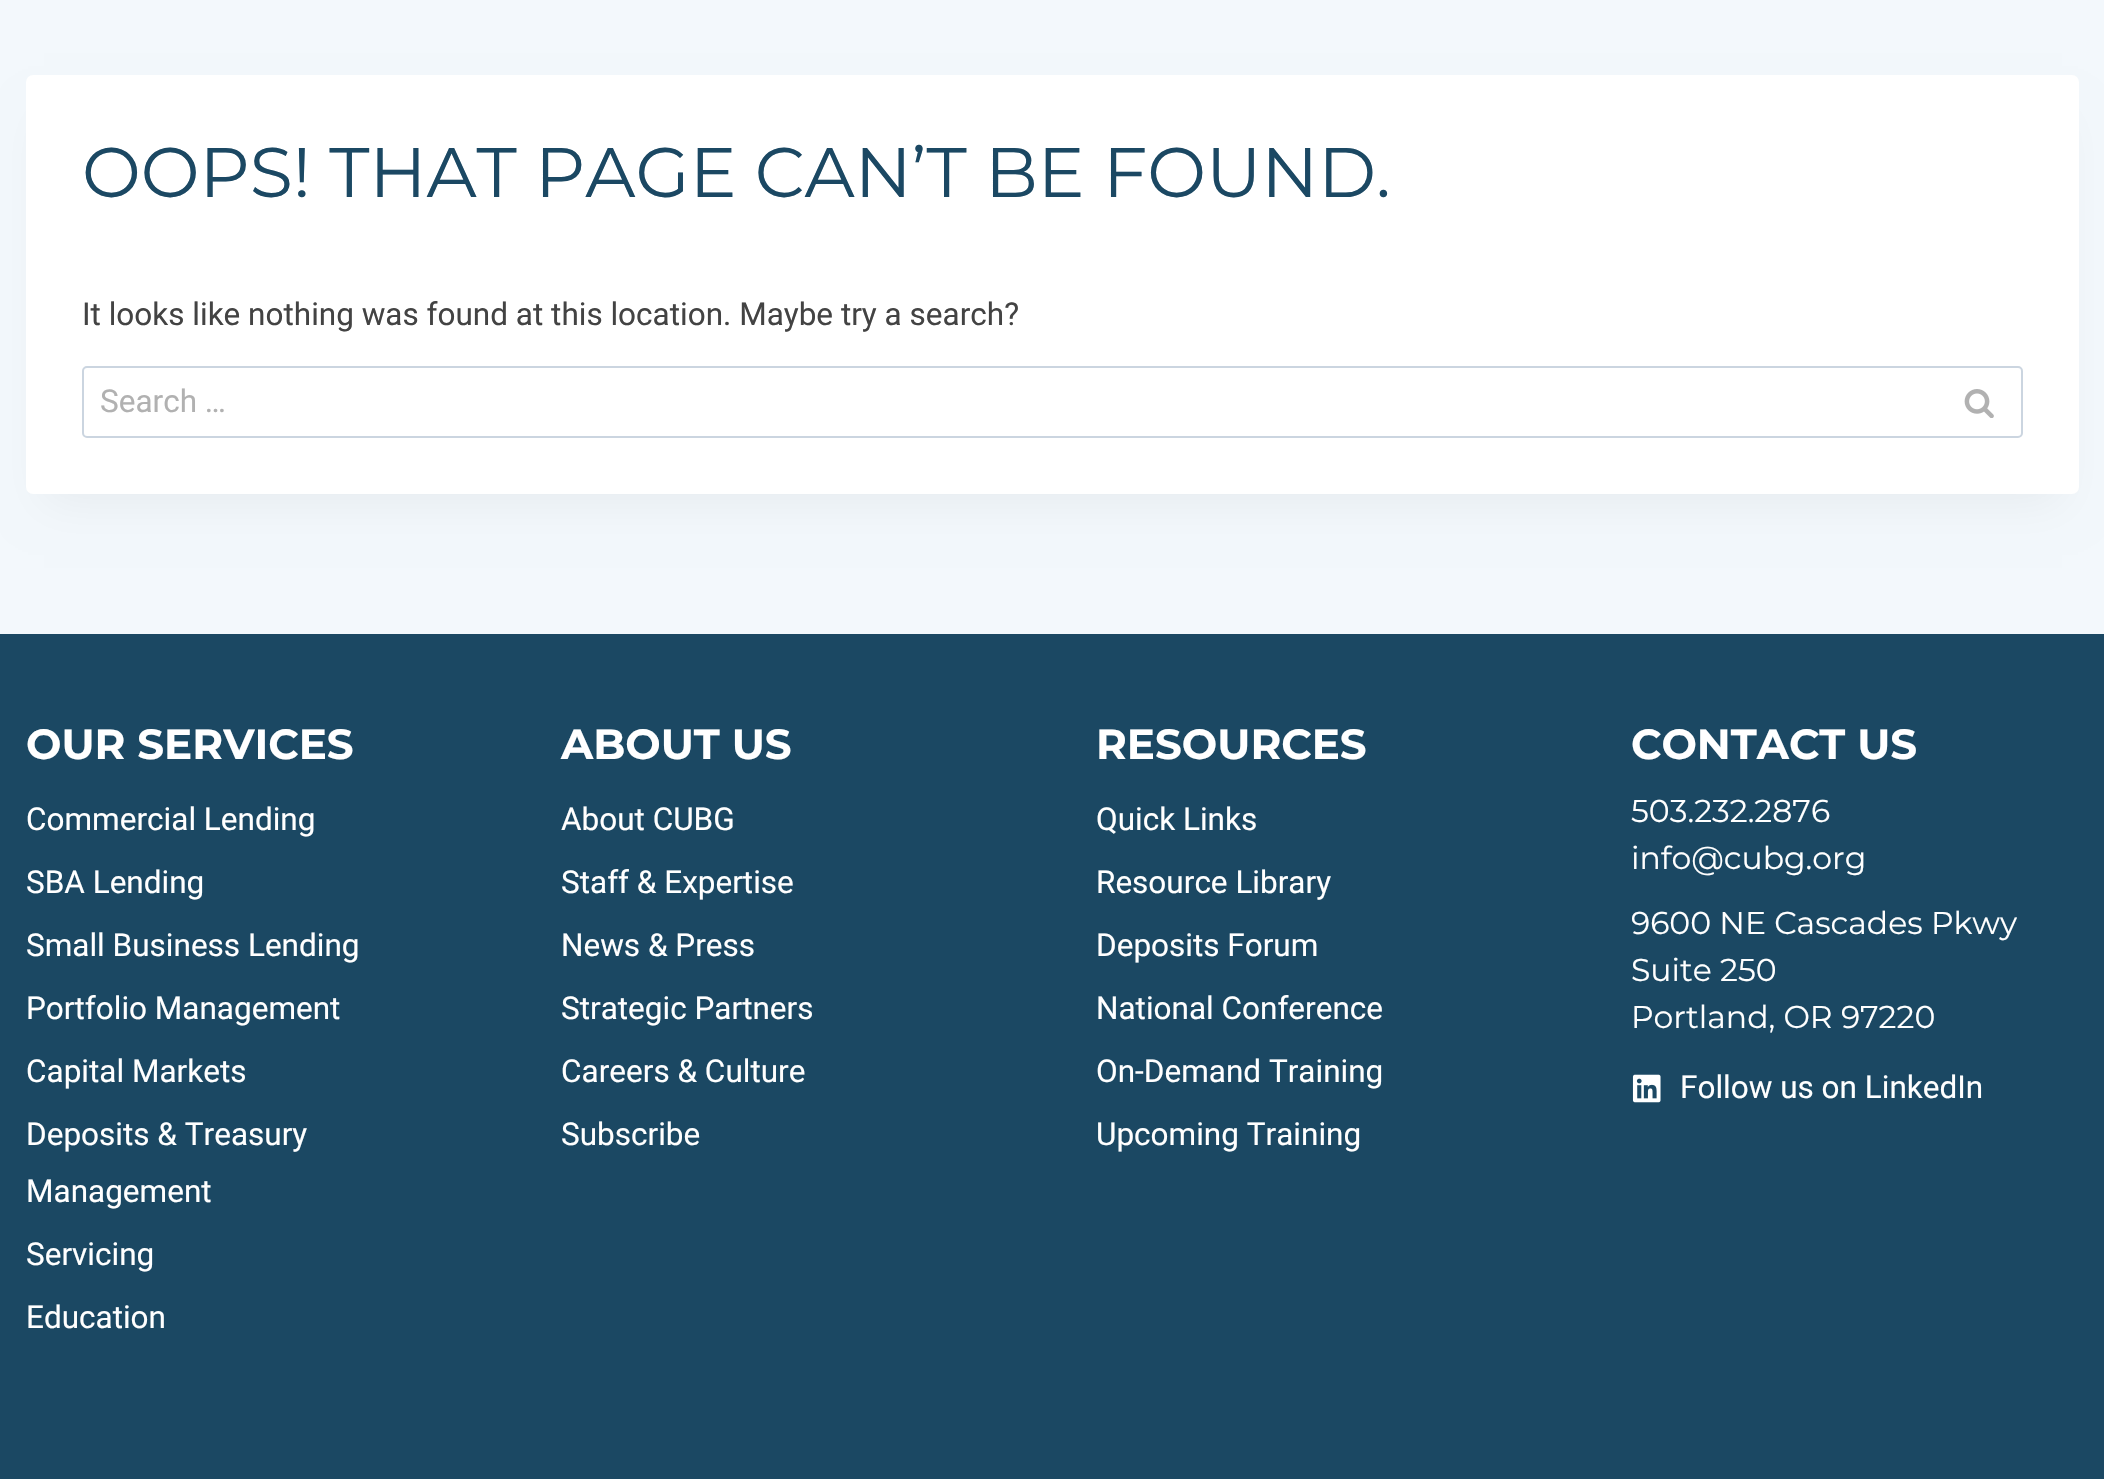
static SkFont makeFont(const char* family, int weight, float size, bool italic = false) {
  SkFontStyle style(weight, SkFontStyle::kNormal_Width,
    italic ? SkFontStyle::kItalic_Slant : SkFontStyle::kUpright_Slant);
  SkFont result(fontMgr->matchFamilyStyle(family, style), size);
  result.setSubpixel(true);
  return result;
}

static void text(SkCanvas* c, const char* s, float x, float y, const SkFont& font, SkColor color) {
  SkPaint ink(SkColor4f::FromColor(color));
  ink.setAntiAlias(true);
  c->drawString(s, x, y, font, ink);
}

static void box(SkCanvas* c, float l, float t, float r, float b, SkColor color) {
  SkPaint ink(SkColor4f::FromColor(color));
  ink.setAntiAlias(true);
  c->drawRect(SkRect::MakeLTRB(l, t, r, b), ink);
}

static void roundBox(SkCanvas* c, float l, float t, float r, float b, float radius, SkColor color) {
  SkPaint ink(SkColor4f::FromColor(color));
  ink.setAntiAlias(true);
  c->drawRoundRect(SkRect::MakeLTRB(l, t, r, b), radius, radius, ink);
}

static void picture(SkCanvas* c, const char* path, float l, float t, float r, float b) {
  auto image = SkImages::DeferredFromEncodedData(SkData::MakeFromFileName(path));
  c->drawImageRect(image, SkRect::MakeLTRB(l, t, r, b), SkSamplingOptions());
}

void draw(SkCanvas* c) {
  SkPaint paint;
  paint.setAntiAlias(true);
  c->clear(0xfff3f8fc);
  paint.setColor(0x0d000000);
  paint.setMaskFilter(SkMaskFilter::MakeBlur(kNormal_SkBlurStyle, 22));
  c->drawRect(SkRect::MakeLTRB(44, 119, 2062, 502), paint);
  paint.setMaskFilter(nullptr);
  roundBox(c, 26, 75, 2079, 494, 7, 0xffffffff);
  SkFont face1 = makeFont("Montserrat", 400, 70);
  text(c, "OOPS! THAT PAGE CAN’T BE FOUND.", 82, 197, face1, 0xff1b4863);
  SkFont face2 = makeFont("Roboto", 400, 31.5f);
  text(c, "It looks like nothing was found at this location. Maybe try a search?", 82, 325, face2, 0xff434343);
  paint.setStyle(SkPaint::kStroke_Style);
  paint.setStrokeWidth(2);
  paint.setColor(0xffcbd5e0);
  c->drawRoundRect(SkRect::MakeLTRB(83, 367, 2022, 437), 4, 4, paint);
  text(c, "Search …", 100, 412, face2, 0xffb1b1b1);
  picture(c, "img_01.png", 1964, 389, 1994, 418);
  box(c, 0, 634, 2104, 1479, 0xff1b4863);
  SkFont face3 = makeFont("Montserrat", 700, 42);
  text(c, "OUR SERVICES", 26, 759, face3, 0xffffffff);
  text(c, "Commercial Lending", 26, 830, face2, 0xffffffff);
  text(c, "SBA Lending", 26, 893, face2, 0xffffffff);
  text(c, "Small Business Lending", 26, 956, face2, 0xffffffff);
  text(c, "Portfolio Management", 26, 1019, face2, 0xffffffff);
  text(c, "Capital Markets", 26, 1082, face2, 0xffffffff);
  text(c, "Deposits & Treasury", 26, 1145, face2, 0xffffffff);
  text(c, "Management", 26, 1202, face2, 0xffffffff);
  text(c, "Servicing", 26, 1265, face2, 0xffffffff);
  text(c, "Education", 26, 1328, face2, 0xffffffff);
  text(c, "ABOUT US", 561, 759, face3, 0xffffffff);
  text(c, "About CUBG", 561, 830, face2, 0xffffffff);
  text(c, "Staff & Expertise", 561, 893, face2, 0xffffffff);
  text(c, "News & Press", 561, 956, face2, 0xffffffff);
  text(c, "Strategic Partners", 561, 1019, face2, 0xffffffff);
  text(c, "Careers & Culture", 561, 1082, face2, 0xffffffff);
  text(c, "Subscribe", 561, 1145, face2, 0xffffffff);
  text(c, "RESOURCES", 1096, 759, face3, 0xffffffff);
  text(c, "Quick Links", 1096, 830, face2, 0xffffffff);
  text(c, "Resource Library", 1096, 893, face2, 0xffffffff);
  text(c, "Deposits Forum", 1096, 956, face2, 0xffffffff);
  text(c, "National Conference", 1096, 1019, face2, 0xffffffff);
  text(c, "On-Demand Training", 1096, 1082, face2, 0xffffffff);
  text(c, "Upcoming Training", 1096, 1145, face2, 0xffffffff);
  text(c, "CONTACT US", 1631, 759, face3, 0xffffffff);
  SkFont face4 = makeFont("Montserrat", 400, 31.5f);
  text(c, "503.232.2876", 1631, 822, face4, 0xffffffff);
  text(c, "info@cubg.org", 1631, 869, face4, 0xffffffff);
  text(c, "9600 NE Cascades Pkwy", 1631, 934, face4, 0xffffffff);
  text(c, "Suite 250", 1631, 981, face4, 0xffffffff);
  text(c, "Portland, OR 97220", 1631, 1028, face4, 0xffffffff);
  picture(c, "img_02.png", 1632, 1074, 1661, 1103);
  text(c, "Follow us on LinkedIn", 1680, 1098, face2, 0xffffffff);
}
